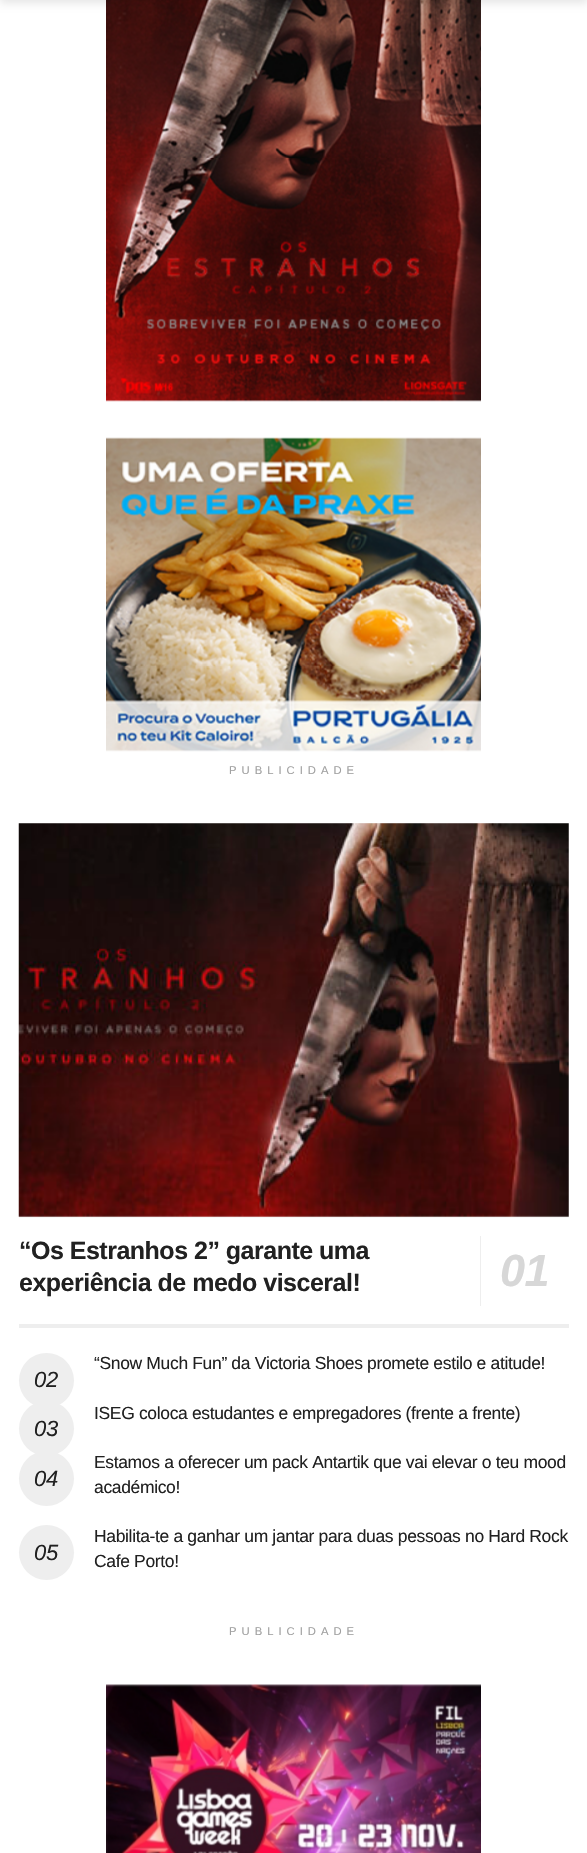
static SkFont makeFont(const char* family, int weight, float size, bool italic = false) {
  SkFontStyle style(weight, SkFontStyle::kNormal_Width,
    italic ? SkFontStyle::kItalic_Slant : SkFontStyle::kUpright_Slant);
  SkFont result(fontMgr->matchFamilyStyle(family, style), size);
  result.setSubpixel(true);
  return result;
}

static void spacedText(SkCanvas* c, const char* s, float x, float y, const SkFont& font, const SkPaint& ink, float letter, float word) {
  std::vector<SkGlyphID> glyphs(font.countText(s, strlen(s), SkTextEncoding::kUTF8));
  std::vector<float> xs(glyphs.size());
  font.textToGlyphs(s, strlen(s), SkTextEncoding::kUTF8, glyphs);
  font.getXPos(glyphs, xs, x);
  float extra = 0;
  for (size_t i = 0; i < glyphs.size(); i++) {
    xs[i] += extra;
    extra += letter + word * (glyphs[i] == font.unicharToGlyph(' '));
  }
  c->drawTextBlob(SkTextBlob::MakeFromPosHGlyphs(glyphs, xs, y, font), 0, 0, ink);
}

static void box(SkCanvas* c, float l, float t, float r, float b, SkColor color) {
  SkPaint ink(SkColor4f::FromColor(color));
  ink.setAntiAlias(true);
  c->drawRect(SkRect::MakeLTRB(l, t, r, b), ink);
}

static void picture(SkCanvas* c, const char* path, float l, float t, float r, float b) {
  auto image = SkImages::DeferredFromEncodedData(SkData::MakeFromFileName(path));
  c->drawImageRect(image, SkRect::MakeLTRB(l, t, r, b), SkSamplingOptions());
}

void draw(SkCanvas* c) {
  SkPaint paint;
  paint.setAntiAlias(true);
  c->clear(0xffffffff);
  picture(c, "img_01.png", 106, 0, 481, 402);
  paint.setColor(0x1a000000);
  paint.setMaskFilter(SkMaskFilter::MakeBlur(kNormal_SkBlurStyle, 4));
  c->drawRect(SkRect::MakeLTRB(0, -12, 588, 3), paint);
  paint.setMaskFilter(nullptr);
  picture(c, "img_02.png", 106, 437, 481, 752);
  SkFont face1 = makeFont("Liberation Sans", 400, 11.25f);
  paint.setColor(0xffa0a0a0);
  spacedText(c, "PUBLICIDADE", 229, 774, face1, paint, 5, 0);
  box(c, 19, 1324, 569, 1328, 0xffeeeeee);
  box(c, 19, 1216, 569, 1218, 0xfff7f7f7);
  picture(c, "img_04.png", 19, 823, 569, 1217);
  picture(c, "img_03.png", 18, 823, 569, 1217);
  SkFont face2 = makeFont("Liberation Sans", 700, 25);
  paint.setColor(0xff212121);
  spacedText(c, "“Os Estranhos 2” garante uma", 19, 1259, face2, paint, -0.5f, 0);
  box(c, 480, 1236, 481, 1306, 0xffeeeeee);
  SkFont face3 = makeFont("Liberation Sans", 700, 45, true);
  paint.setColor(0xffd7d7d7);
  spacedText(c, "01", 500, 1286, face3, paint, -0.5f, 0);
  paint.setColor(0xff212121);
  spacedText(c, "experiência de medo visceral!", 19, 1291, face2, paint, -0.5f, 0);
  SkFont face4 = makeFont("Liberation Sans", 400, 17.5f);
  spacedText(c, "“Snow Much Fun” da Victoria Shoes promete estilo e atitude!", 94, 1369, face4, paint, -0.35f, 0);
  paint.setColor(0xffeeeeee);
  c->drawCircle(46.5f, 1380.5f, 27.5f, paint);
  SkFont face5 = makeFont("Liberation Sans", 400, 22, true);
  paint.setColor(0xff212121);
  spacedText(c, "02", 34, 1387, face5, paint, -0.35f, 0);
  spacedText(c, "ISEG coloca estudantes e empregadores (frente a frente)", 94, 1419, face4, paint, -0.35f, 0);
  paint.setColor(0xffeeeeee);
  c->drawCircle(46.5f, 1428.5f, 27.5f, paint);
  paint.setColor(0xff212121);
  spacedText(c, "03", 34, 1436, face5, paint, -0.35f, 0);
  spacedText(c, "Estamos a oferecer um pack Antartik que vai elevar o teu mood", 94, 1468, face4, paint, -0.35f, 0);
  paint.setColor(0xffeeeeee);
  c->drawCircle(46.5f, 1478.5f, 27.5f, paint);
  paint.setColor(0xff212121);
  spacedText(c, "04", 34, 1486, face5, paint, -0.35f, 0);
  spacedText(c, "académico!", 94, 1493, face4, paint, -0.35f, 0);
  spacedText(c, "Habilita-te a ganhar um jantar para duas pessoas no Hard Rock", 94, 1542, face4, paint, -0.35f, 0);
  paint.setColor(0xffeeeeee);
  c->drawCircle(46.5f, 1552.5f, 27.5f, paint);
  paint.setColor(0xff212121);
  spacedText(c, "05", 34, 1560, face5, paint, -0.35f, 0);
  spacedText(c, "Cafe Porto!", 94, 1567, face4, paint, -0.35f, 0);
  paint.setColor(0xffa0a0a0);
  spacedText(c, "PUBLICIDADE", 229, 1635, face1, paint, 5, 0);
  picture(c, "img_05.png", 106, 1684, 481, 1853);
}
